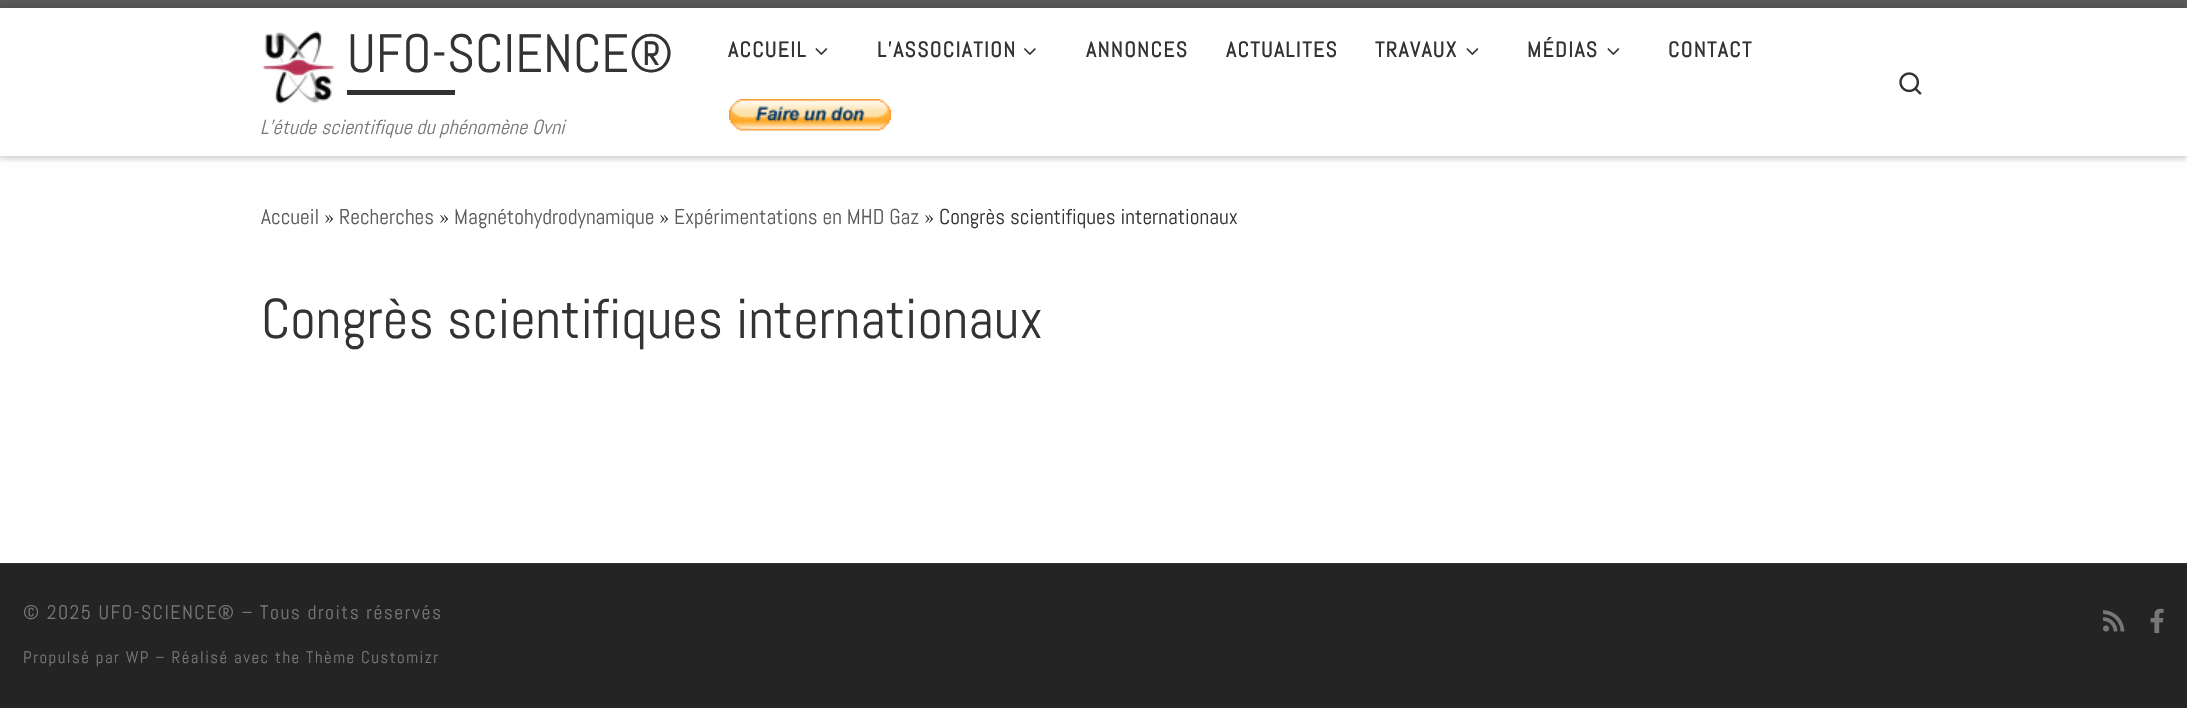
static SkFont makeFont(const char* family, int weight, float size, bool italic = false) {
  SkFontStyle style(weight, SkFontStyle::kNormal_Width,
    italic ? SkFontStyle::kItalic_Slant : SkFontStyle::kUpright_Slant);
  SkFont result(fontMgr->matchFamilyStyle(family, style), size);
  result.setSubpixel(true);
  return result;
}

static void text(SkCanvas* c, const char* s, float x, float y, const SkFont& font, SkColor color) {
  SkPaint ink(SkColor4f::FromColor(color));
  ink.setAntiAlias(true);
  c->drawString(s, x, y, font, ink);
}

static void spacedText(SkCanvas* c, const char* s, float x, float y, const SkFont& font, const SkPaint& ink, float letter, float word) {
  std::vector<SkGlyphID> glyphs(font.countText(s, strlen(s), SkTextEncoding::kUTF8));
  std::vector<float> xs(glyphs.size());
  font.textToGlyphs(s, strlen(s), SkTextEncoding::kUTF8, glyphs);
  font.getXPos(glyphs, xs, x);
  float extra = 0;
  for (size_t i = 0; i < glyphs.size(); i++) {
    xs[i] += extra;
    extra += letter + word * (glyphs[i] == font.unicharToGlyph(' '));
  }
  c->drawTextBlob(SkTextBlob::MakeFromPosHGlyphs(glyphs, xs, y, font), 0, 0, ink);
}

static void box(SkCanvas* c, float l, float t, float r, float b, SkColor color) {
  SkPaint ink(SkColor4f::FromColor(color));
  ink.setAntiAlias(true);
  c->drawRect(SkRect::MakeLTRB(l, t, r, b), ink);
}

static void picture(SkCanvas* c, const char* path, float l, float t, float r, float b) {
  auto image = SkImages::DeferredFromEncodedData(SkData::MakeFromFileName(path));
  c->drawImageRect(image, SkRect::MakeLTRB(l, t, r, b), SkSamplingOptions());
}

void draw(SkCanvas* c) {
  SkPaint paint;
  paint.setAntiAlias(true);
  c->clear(0xffffffff);
  paint.setColor(0x14666666);
  paint.setMaskFilter(SkMaskFilter::MakeBlur(kNormal_SkBlurStyle, 1.5f));
  c->drawRect(SkRect::MakeLTRB(0, 3, 2187, 161), paint);
  paint.setMaskFilter(nullptr);
  box(c, 0, 8, 2187, 156, 0xffffffff);
  box(c, 0, 0, 2187, 8, 0xff5a5a5a);
  box(c, 0, 156, 2187, 158, 0xffefefef);
  c->save();
  c->clipPath(SkPathBuilder(SkPathFillType::kEvenOdd).moveTo(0, 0).lineTo(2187, 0).lineTo(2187, 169).lineTo(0, 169).close().moveTo(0, 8).lineTo(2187, 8).lineTo(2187, 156).lineTo(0, 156).close().detach(), true);
  paint.setColor(0x33000000);
  paint.setMaskFilter(SkMaskFilter::MakeBlur(kNormal_SkBlurStyle, 4));
  c->drawRect(SkRect::MakeLTRB(0, 8, 2187, 156), paint);
  paint.setMaskFilter(nullptr);
  c->restore();
  picture(c, "img_01.png", 262, 31, 335, 104);
  SkFont face1 = makeFont("Abel", 400, 54);
  text(c, "UFO-SCIENCE®", 347, 72, face1, 0xff333333);
  box(c, 347, 90, 455, 95, 0xff313131);
  SkFont face2 = makeFont("Abel", 400, 20.25f, true);
  text(c, "L'étude scientifique du phénomène Ovni", 260, 134, face2, 0xff777777);
  SkFont face3 = makeFont("Abel", 700, 21.4f);
  paint.setColor(0xff333333);
  spacedText(c, "ACCUEIL", 728, 57, face3, paint, 1.5f, 0);
  picture(c, "img_02.png", 815, 48, 828, 55);
  spacedText(c, "L’ASSOCIATION", 877, 57, face3, paint, 1.5f, 0);
  picture(c, "img_03.png", 1024, 48, 1036, 55);
  spacedText(c, "ANNONCES", 1086, 57, face3, paint, 1.5f, 0);
  spacedText(c, "ACTUALITES", 1226, 57, face3, paint, 1.5f, 0);
  spacedText(c, "TRAVAUX", 1375, 57, face3, paint, 1.5f, 0);
  picture(c, "img_02.png", 1466, 48, 1479, 55);
  spacedText(c, "MÉDIAS", 1527, 57, face3, paint, 1.5f, 0);
  picture(c, "img_02.png", 1607, 48, 1620, 55);
  spacedText(c, "CONTACT", 1668, 57, face3, paint, 1.5f, 0);
  picture(c, "img_04.png", 729, 99, 891, 131);
  picture(c, "img_05.png", 1899, 72, 1922, 95);
  SkFont face4 = makeFont("Abel", 400, 21.4f);
  text(c, "Accueil", 261, 224, face4, 0xff5a5a5a);
  text(c, "»", 324, 224, face4, 0xff333333);
  text(c, "Recherches", 339, 224, face4, 0xff5a5a5a);
  text(c, "»", 439, 224, face4, 0xff333333);
  text(c, "Magnétohydrodynamique", 454, 224, face4, 0xff5a5a5a);
  text(c, "»", 659, 224, face4, 0xff333333);
  text(c, "Expérimentations en MHD Gaz", 674, 224, face4, 0xff5a5a5a);
  text(c, "» Congrès scientifiques internationaux", 924, 224, face4, 0xff333333);
  SkFont face5 = makeFont("Abel", 400, 56);
  text(c, "Congrès scientifiques internationaux", 261, 338, face5, 0xff333333);
  box(c, 0, 563, 2187, 564, 0xff313131);
  box(c, 0, 564, 2187, 708, 0xff242424);
  SkFont face6 = makeFont("Abel", 400, 19.7f);
  paint.setColor(0xff777777);
  spacedText(c, "© 2025 UFO-SCIENCE® – Tous droits réservés", 23, 619, face6, paint, 1.5f, 0);
  SkFont face7 = makeFont("Abel", 400, 16.8f);
  spacedText(c, "Propulsé par WP – Réalisé avec the Thème Customizr", 23, 663, face7, paint, 1.5f, 0);
  picture(c, "img_06.png", 2103, 610, 2125, 632);
  picture(c, "img_07.png", 2150, 608, 2164, 634);
}
